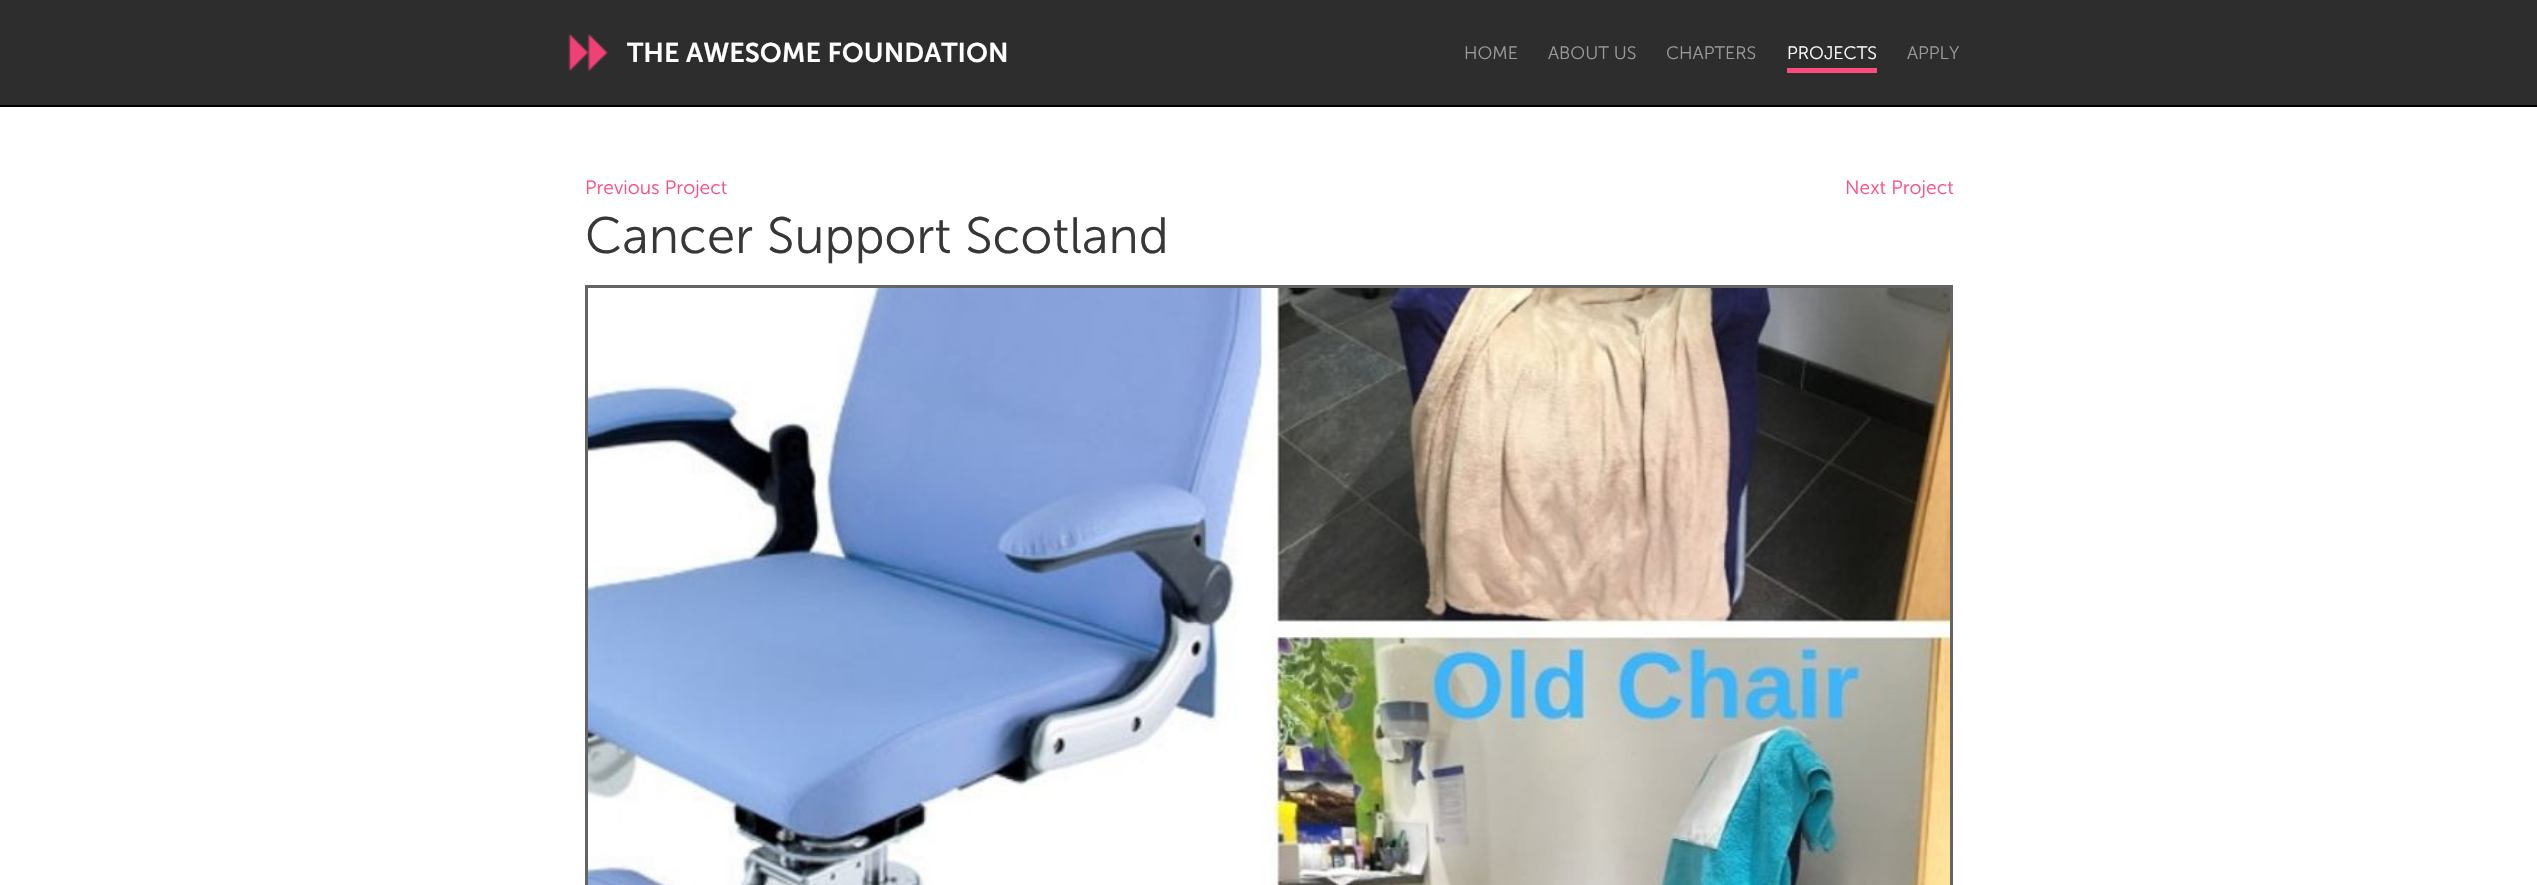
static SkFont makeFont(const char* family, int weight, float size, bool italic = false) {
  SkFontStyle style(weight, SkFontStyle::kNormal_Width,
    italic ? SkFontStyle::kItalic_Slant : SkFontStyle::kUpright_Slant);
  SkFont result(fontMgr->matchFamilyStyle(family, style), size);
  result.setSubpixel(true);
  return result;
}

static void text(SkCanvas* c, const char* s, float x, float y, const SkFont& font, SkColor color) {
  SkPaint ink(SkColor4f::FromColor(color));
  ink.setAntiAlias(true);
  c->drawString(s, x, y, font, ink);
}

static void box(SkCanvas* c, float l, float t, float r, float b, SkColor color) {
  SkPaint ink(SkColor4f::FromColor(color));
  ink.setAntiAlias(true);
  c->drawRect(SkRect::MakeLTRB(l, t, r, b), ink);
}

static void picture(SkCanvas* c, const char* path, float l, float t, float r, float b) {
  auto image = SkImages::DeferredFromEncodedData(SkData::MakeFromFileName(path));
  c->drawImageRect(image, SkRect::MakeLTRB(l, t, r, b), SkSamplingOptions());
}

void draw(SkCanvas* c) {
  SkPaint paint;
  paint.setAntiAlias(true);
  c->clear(0xffffffff);
  box(c, 0, 0, 2537, 105, 0xff2d2d2d);
  box(c, 0, 105, 2537, 107, 0xff000000);
  picture(c, "img_01.png", 568, 34, 608, 71);
  SkFont face1 = makeFont("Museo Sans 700", 600, 27);
  text(c, "THE AWESOME FOUNDATION", 627, 62, face1, 0xffffffff);
  SkFont face2 = makeFont("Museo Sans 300", 300, 18);
  text(c, "HOME", 1464, 59, face2, 0xff9b9b9b);
  text(c, "ABOUT US", 1548, 59, face2, 0xff9b9b9b);
  text(c, "CHAPTERS", 1666, 59, face2, 0xff9b9b9b);
  box(c, 1787, 68, 1877, 73, 0xffff4b7e);
  text(c, "PROJECTS", 1787, 59, face2, 0xffffffff);
  text(c, "APPLY", 1907, 59, face2, 0xff9b9b9b);
  SkFont face3 = makeFont("Museo Sans 300", 300, 19.25f);
  text(c, "Previous Project", 585, 194, face3, 0xffff4b7e);
  text(c, "Next Project", 1845, 194, face3, 0xffff4b7e);
  SkFont face4 = makeFont("Museo Sans 300", 300, 51);
  text(c, "Cancer Support Scotland", 585, 253, face4, 0xff373737);
  box(c, 585, 285, 1953, 885, 0xff646464);
  picture(c, "img_02.png", 588, 288, 1950, 885);
}
